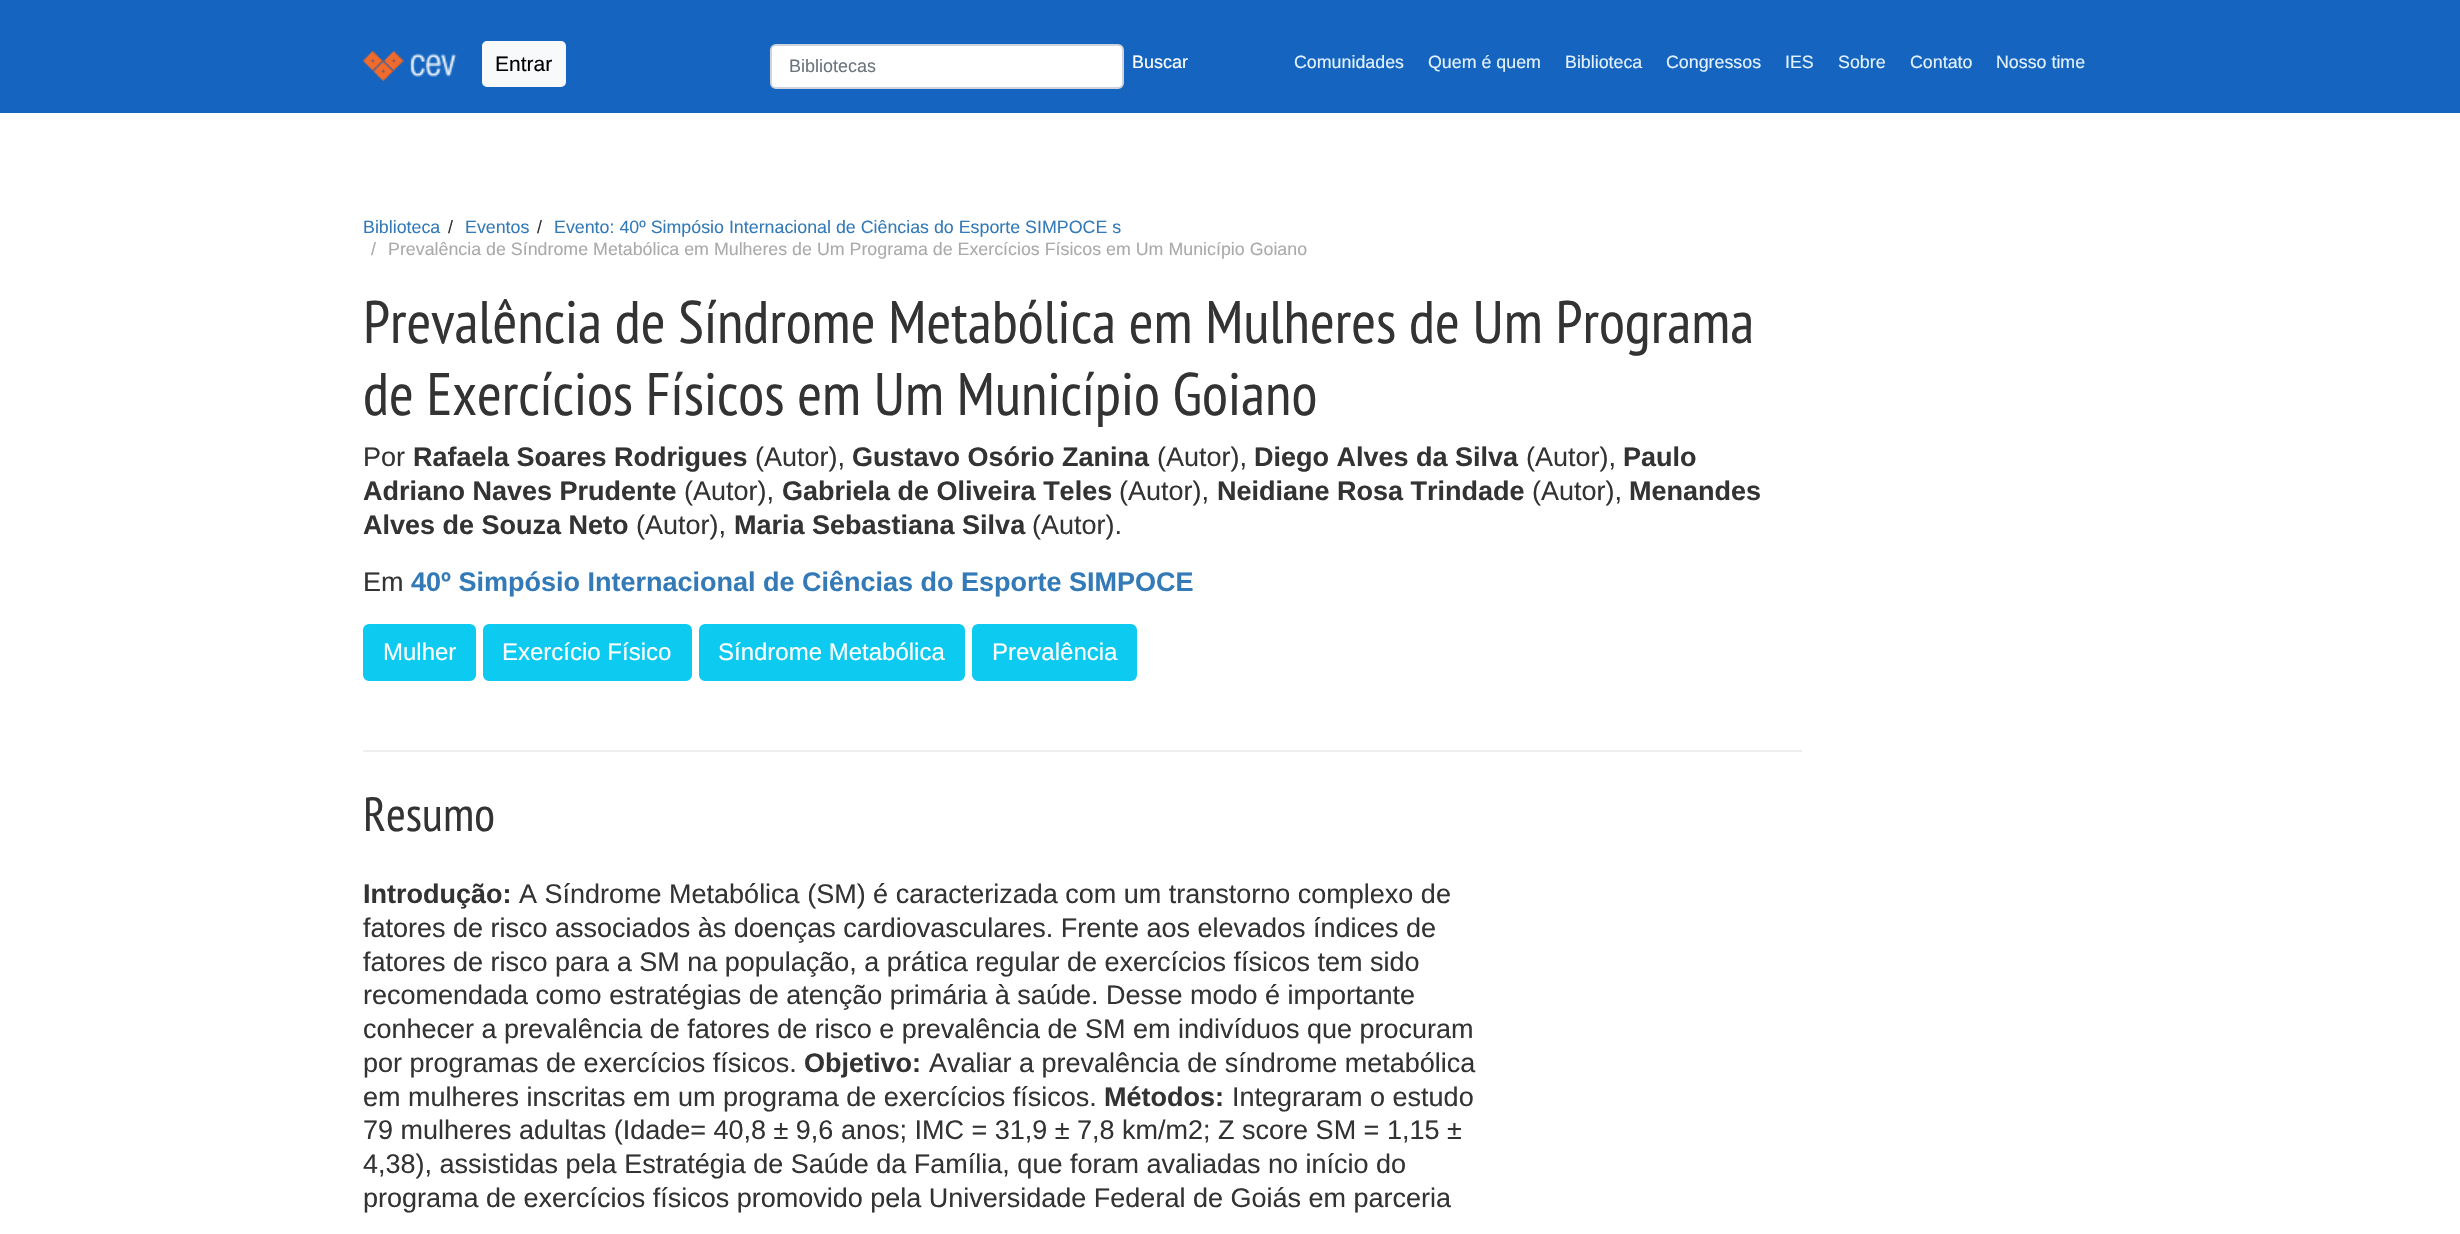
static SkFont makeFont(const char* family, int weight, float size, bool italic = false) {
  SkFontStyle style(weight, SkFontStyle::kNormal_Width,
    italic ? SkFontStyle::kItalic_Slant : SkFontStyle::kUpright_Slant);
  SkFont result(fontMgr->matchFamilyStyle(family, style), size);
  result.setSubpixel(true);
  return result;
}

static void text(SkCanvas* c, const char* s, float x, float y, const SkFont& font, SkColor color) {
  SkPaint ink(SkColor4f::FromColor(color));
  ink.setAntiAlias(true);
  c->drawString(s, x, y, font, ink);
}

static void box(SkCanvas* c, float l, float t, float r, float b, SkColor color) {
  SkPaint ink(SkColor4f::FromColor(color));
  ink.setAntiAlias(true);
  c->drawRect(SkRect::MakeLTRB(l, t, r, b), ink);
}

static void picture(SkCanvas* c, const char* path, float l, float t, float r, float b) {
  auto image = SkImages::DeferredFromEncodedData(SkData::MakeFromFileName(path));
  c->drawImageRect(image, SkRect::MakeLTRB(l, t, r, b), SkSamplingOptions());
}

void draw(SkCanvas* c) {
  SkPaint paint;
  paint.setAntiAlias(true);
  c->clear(0xffffffff);
  box(c, 0, 0, 2460, 113, 0xff1565c0);
  picture(c, "img_01.png", 363, 51, 457, 81);
  paint.setColor(0xfff8f9fa);
  c->drawRoundRect(SkRect::MakeLTRB(483, 42, 565, 86), 4, 4, paint);
  paint.setStyle(SkPaint::kStroke_Style);
  paint.setStrokeWidth(2);
  c->drawRoundRect(SkRect::MakeLTRB(483, 42, 565, 86), 4, 4, paint);
  SkFont face1 = makeFont("Liberation Sans", 400, 21);
  text(c, "Entrar", 495, 71, face1, 0xff000000);
  paint.setStyle(SkPaint::kFill_Style);
  paint.setColor(0xffffffff);
  c->drawRoundRect(SkRect::MakeLTRB(771, 45, 1123, 88), 5, 5, paint);
  paint.setStyle(SkPaint::kStroke_Style);
  paint.setColor(0xffced4da);
  c->drawRoundRect(SkRect::MakeLTRB(771, 45, 1123, 88), 5, 5, paint);
  SkFont face2 = makeFont("Liberation Sans", 400, 18);
  text(c, "Bibliotecas", 789, 72, face2, 0xff6c757d);
  text(c, "Buscar", 1132, 68, face2, 0xffffffff);
  SkFont face3 = makeFont("Liberation Sans", 400, 17.82f);
  text(c, "Comunidades", 1294, 68, face3, 0xffe3f2fd);
  text(c, "Quem é quem", 1428, 68, face3, 0xffe3f2fd);
  text(c, "Biblioteca", 1565, 68, face3, 0xffe3f2fd);
  text(c, "Congressos", 1666, 68, face3, 0xffe3f2fd);
  text(c, "IES", 1785, 68, face3, 0xffe3f2fd);
  text(c, "Sobre", 1838, 68, face3, 0xffe3f2fd);
  text(c, "Contato", 1910, 68, face3, 0xffe3f2fd);
  text(c, "Nosso time", 1996, 68, face3, 0xffe3f2fd);
  box(c, 363, 750, 1802, 752, 0xffeeeeee);
  text(c, "Biblioteca", 363, 233, face3, 0xff337ab7);
  text(c, "/", 448, 233, face3, 0xff333333);
  text(c, "Eventos", 465, 233, face3, 0xff337ab7);
  text(c, "/", 537, 233, face3, 0xff333333);
  text(c, "Evento: 40º Simpósio Internacional de Ciências do Esporte SIMPOCE s", 554, 233, face3, 0xff337ab7);
  text(c, "/", 371, 255, face3, 0xffaaaaaa);
  text(c, "Prevalência de Síndrome Metabólica em Mulheres de Um Programa de Exercícios Físicos em Um Município Goiano", 388, 255, face3, 0xffaaaaaa);
  SkFont face4 = makeFont("PT Sans Narrow", 400, 60);
  text(c, "Prevalência de Síndrome Metabólica em Mulheres de Um Programa", 363, 343, face4, 0xff333333);
  text(c, "de Exercícios Físicos em Um Município Goiano", 363, 415, face4, 0xff333333);
  SkFont face5 = makeFont("Liberation Sans", 400, 27);
  text(c, "Por", 363, 466, face5, 0xff333333);
  SkFont face6 = makeFont("Liberation Sans", 700, 27);
  text(c, "Rafaela Soares Rodrigues", 413, 466, face6, 0xff333333);
  text(c, "(Autor),", 755, 466, face5, 0xff333333);
  text(c, "Gustavo Osório Zanina", 852, 466, face6, 0xff333333);
  text(c, "(Autor),", 1157, 466, face5, 0xff333333);
  text(c, "Diego Alves da Silva", 1254, 466, face6, 0xff333333);
  text(c, "(Autor),", 1526, 466, face5, 0xff333333);
  text(c, "Paulo", 1623, 466, face6, 0xff333333);
  text(c, "Adriano Naves Prudente", 363, 500, face6, 0xff333333);
  text(c, "(Autor),", 684, 500, face5, 0xff333333);
  text(c, "Gabriela de Oliveira Teles", 782, 500, face6, 0xff333333);
  text(c, "(Autor),", 1119, 500, face5, 0xff333333);
  text(c, "Neidiane Rosa Trindade", 1217, 500, face6, 0xff333333);
  text(c, "(Autor),", 1532, 500, face5, 0xff333333);
  text(c, "Menandes", 1629, 500, face6, 0xff333333);
  text(c, "Alves de Souza Neto", 363, 534, face6, 0xff333333);
  text(c, "(Autor),", 636, 534, face5, 0xff333333);
  text(c, "Maria Sebastiana Silva", 734, 534, face6, 0xff333333);
  text(c, "(Autor).", 1032, 534, face5, 0xff333333);
  text(c, "Em", 363, 591, face5, 0xff333333);
  text(c, "40º Simpósio Internacional de Ciências do Esporte SIMPOCE", 411, 591, face6, 0xff337ab7);
  paint.setStyle(SkPaint::kFill_Style);
  paint.setColor(0xff0dcaf0);
  c->drawRoundRect(SkRect::MakeLTRB(364, 625, 475, 680), 5, 5, paint);
  paint.setStyle(SkPaint::kStroke_Style);
  c->drawRoundRect(SkRect::MakeLTRB(364, 625, 475, 680), 5, 5, paint);
  SkFont face7 = makeFont("Liberation Sans", 400, 24);
  text(c, "Mulher", 383, 660, face7, 0xffffffff);
  paint.setStyle(SkPaint::kFill_Style);
  c->drawRoundRect(SkRect::MakeLTRB(484, 625, 691, 680), 5, 5, paint);
  paint.setStyle(SkPaint::kStroke_Style);
  c->drawRoundRect(SkRect::MakeLTRB(484, 625, 691, 680), 5, 5, paint);
  text(c, "Exercício Físico", 502, 660, face7, 0xffffffff);
  paint.setStyle(SkPaint::kFill_Style);
  c->drawRoundRect(SkRect::MakeLTRB(700, 625, 964, 680), 5, 5, paint);
  paint.setStyle(SkPaint::kStroke_Style);
  c->drawRoundRect(SkRect::MakeLTRB(700, 625, 964, 680), 5, 5, paint);
  text(c, "Síndrome Metabólica", 718, 660, face7, 0xffffffff);
  paint.setStyle(SkPaint::kFill_Style);
  c->drawRoundRect(SkRect::MakeLTRB(973, 625, 1136, 680), 5, 5, paint);
  paint.setStyle(SkPaint::kStroke_Style);
  c->drawRoundRect(SkRect::MakeLTRB(973, 625, 1136, 680), 5, 5, paint);
  text(c, "Prevalência", 992, 660, face7, 0xffffffff);
  SkFont face8 = makeFont("PT Sans Narrow", 400, 48);
  text(c, "Resumo", 363, 831, face8, 0xff333333);
  text(c, "Introdução:", 363, 903, face6, 0xff333333);
  text(c, "A Síndrome Metabólica (SM) é caracterizada com um transtorno complexo de", 519, 903, face5, 0xff333333);
  text(c, "fatores de risco associados às doenças cardiovasculares. Frente aos elevados índices de", 363, 937, face5, 0xff333333);
  text(c, "fatores de risco para a SM na população, a prática regular de exercícios físicos tem sido", 363, 971, face5, 0xff333333);
  text(c, "recomendada como estratégias de atenção primária à saúde. Desse modo é importante", 363, 1004, face5, 0xff333333);
  text(c, "conhecer a prevalência de fatores de risco e prevalência de SM em indivíduos que procuram", 363, 1038, face5, 0xff333333);
  text(c, "por programas de exercícios físicos.", 363, 1072, face5, 0xff333333);
  text(c, "Objetivo:", 804, 1072, face6, 0xff333333);
  text(c, "Avaliar a prevalência de síndrome metabólica", 929, 1072, face5, 0xff333333);
  text(c, "em mulheres inscritas em um programa de exercícios físicos.", 363, 1106, face5, 0xff333333);
  text(c, "Métodos:", 1104, 1106, face6, 0xff333333);
  text(c, "Integraram o estudo", 1232, 1106, face5, 0xff333333);
  text(c, "79 mulheres adultas (Idade= 40,8 ± 9,6 anos; IMC = 31,9 ± 7,8 km/m2; Z score SM = 1,15 ±", 363, 1139, face5, 0xff333333);
  text(c, "4,38), assistidas pela Estratégia de Saúde da Família, que foram avaliadas no início do", 363, 1173, face5, 0xff333333);
  text(c, "programa de exercícios físicos promovido pela Universidade Federal de Goiás em parceria", 363, 1207, face5, 0xff333333);
}
